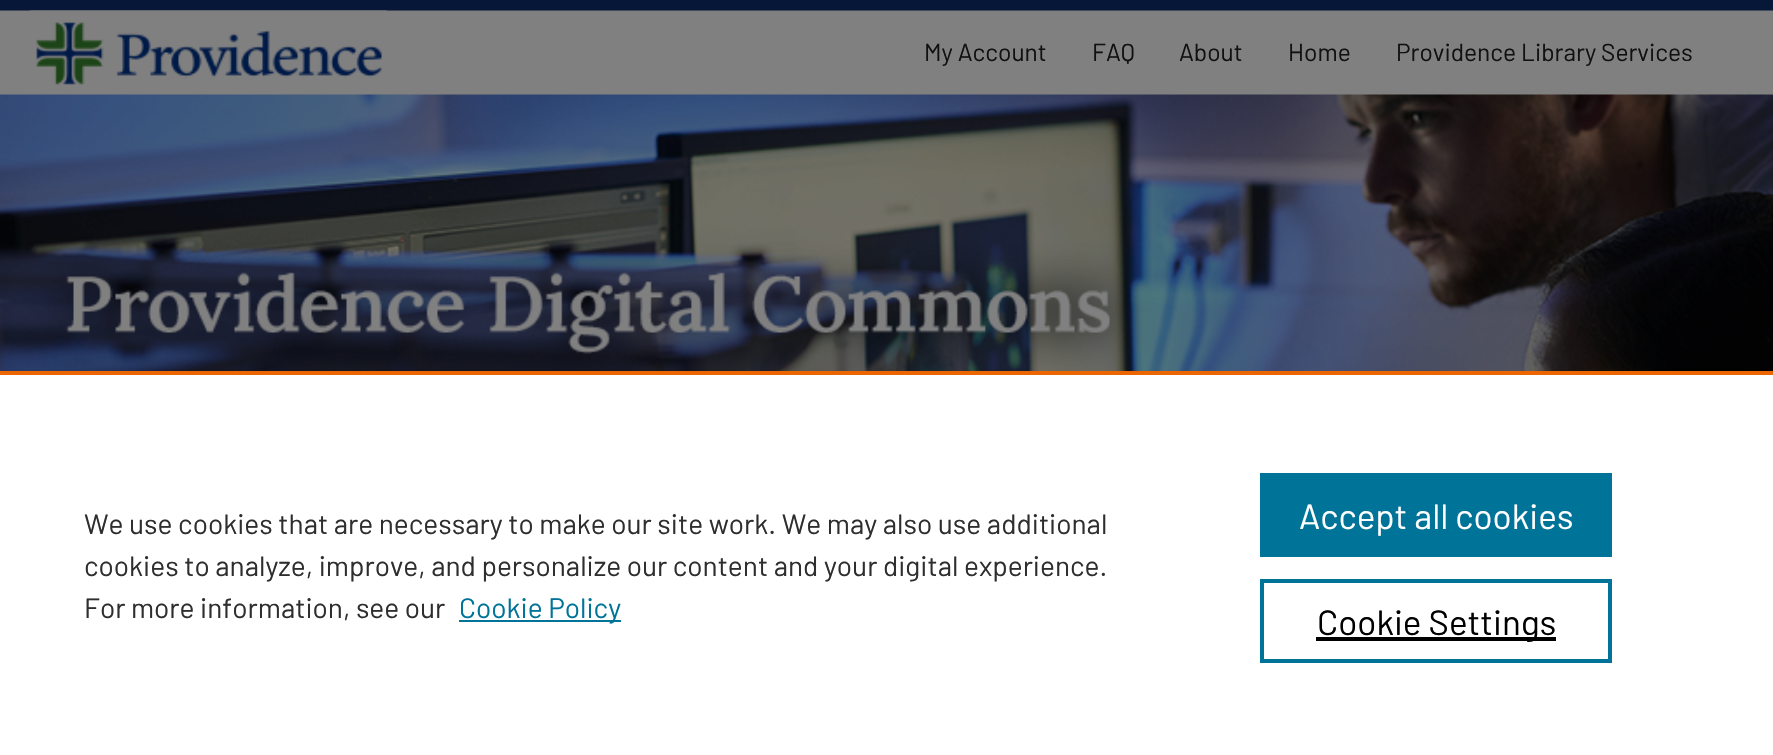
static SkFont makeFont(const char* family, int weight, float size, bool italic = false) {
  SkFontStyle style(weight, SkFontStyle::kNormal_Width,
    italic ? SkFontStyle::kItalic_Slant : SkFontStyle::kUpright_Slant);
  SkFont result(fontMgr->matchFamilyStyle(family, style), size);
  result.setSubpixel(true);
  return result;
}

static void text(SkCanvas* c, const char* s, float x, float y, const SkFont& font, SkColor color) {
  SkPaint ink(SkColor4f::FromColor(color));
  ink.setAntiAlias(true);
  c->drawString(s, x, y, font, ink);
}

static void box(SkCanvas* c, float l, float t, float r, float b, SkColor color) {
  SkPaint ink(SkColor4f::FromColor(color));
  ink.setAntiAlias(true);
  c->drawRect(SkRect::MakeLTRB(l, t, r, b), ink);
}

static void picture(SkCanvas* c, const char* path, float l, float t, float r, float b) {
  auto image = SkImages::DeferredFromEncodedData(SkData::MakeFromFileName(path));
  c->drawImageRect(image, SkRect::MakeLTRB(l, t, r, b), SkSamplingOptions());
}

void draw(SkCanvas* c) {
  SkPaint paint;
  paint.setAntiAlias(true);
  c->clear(0xffffffff);
  picture(c, "img_01.png", 0, 0, 1773, 371);
  box(c, 30, 94, 1745, 95, 0xff808080);
  picture(c, "img_02.png", 29, 10, 387, 95);
  SkFont face1 = makeFont("Barlow", 400, 24.5f);
  text(c, "My Account", 924, 61, face1, 0xff111111);
  text(c, "FAQ", 1092, 61, face1, 0xff111111);
  text(c, "About", 1179, 61, face1, 0xff111111);
  text(c, "Home", 1288, 61, face1, 0xff111111);
  text(c, "Providence Library Services", 1396, 61, face1, 0xff111111);
  picture(c, "img_03.png", 29, 94, 1745, 371);
  box(c, 0, 371, 1773, 375, 0xffeb6500);
  SkFont face2 = makeFont("Barlow", 400, 28);
  text(c, "We use cookies that are necessary to make our site work. We may also use additional", 84, 534, face2, 0xff2e2e2e);
  text(c, "cookies to analyze, improve, and personalize our content and your digital experience.", 84, 576, face2, 0xff2e2e2e);
  text(c, "For more information, see our", 84, 618, face2, 0xff2e2e2e);
  box(c, 459, 620, 621, 622, 0xff007398);
  text(c, "Cookie Policy", 459, 618, face2, 0xff007398);
  box(c, 1260, 473, 1612, 557, 0xff007398);
  SkFont face3 = makeFont("Barlow", 400, 35);
  text(c, "Accept all cookies", 1299, 529, face3, 0xffffffff);
  paint.setStyle(SkPaint::kStroke_Style);
  paint.setStrokeWidth(4);
  paint.setColor(0xff007398);
  c->drawRect(SkRect::MakeLTRB(1262, 581, 1610, 661), paint);
  box(c, 1316, 637, 1556, 641, 0xff000000);
  text(c, "Cookie Settings", 1317, 635, face3, 0xff000000);
}
